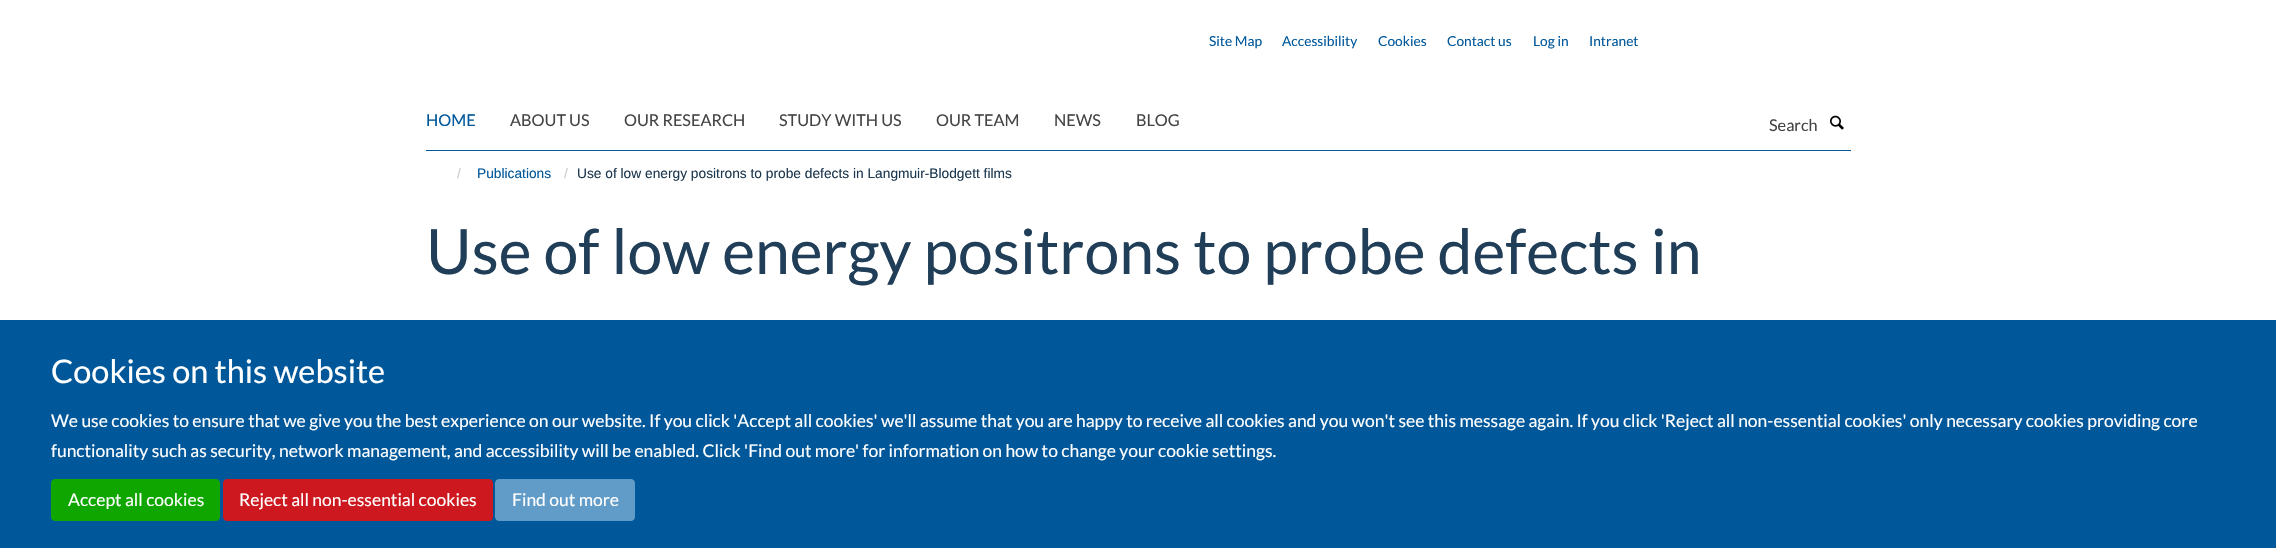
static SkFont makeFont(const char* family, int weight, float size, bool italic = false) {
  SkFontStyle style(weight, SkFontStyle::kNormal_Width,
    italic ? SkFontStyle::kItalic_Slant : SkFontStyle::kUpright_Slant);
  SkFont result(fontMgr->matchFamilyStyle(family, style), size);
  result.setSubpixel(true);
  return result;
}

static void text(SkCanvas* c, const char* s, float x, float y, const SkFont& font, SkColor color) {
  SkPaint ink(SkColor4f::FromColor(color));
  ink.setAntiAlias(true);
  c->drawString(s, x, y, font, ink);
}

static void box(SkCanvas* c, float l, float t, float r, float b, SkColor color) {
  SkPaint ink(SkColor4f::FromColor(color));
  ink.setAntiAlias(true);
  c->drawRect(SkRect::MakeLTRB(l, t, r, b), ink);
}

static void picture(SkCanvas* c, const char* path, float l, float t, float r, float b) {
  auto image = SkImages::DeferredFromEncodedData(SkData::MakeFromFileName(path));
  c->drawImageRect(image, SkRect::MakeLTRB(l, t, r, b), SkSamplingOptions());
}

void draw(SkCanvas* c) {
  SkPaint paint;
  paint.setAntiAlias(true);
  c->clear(0xffffffff);
  SkFont face1 = makeFont("Lato", 400, 13.75f);
  text(c, "Site Map", 1209, 46, face1, 0xff00589b);
  text(c, "Accessibility", 1282, 46, face1, 0xff00589b);
  text(c, "Cookies", 1378, 46, face1, 0xff00589b);
  text(c, "Contact us", 1447, 46, face1, 0xff00589b);
  text(c, "Log in", 1533, 46, face1, 0xff00589b);
  text(c, "Intranet", 1589, 46, face1, 0xff00589b);
  box(c, 426, 150, 1851, 151, 0xff00589b);
  SkFont face2 = makeFont("Lato", 400, 16.25f);
  text(c, "HOME", 426, 126, face2, 0xff00589b);
  text(c, "ABOUT US", 510, 126, face2, 0xff444444);
  text(c, "OUR RESEARCH", 624, 126, face2, 0xff444444);
  text(c, "STUDY WITH US", 779, 126, face2, 0xff444444);
  text(c, "OUR TEAM", 936, 126, face2, 0xff444444);
  text(c, "NEWS", 1054, 126, face2, 0xff444444);
  text(c, "BLOG", 1136, 126, face2, 0xff444444);
  text(c, "Search", 1769, 131, face2, 0xff444444);
  picture(c, "img_01.png", 1830, 115, 1844, 130);
  SkFont face3 = makeFont("Liberation Sans", 400, 13.75f);
  text(c, "/", 457, 178, face3, 0xffcccccc);
  text(c, "Publications", 477, 178, face3, 0xff00589b);
  text(c, "/", 564, 178, face3, 0xffcccccc);
  text(c, "Use of low energy positrons to probe defects in Langmuir-Blodgett films", 577, 178, face3, 0xff1d3850);
  SkFont face4 = makeFont("Lato", 400, 62.5f);
  text(c, "Use of low energy positrons to probe defects in", 426, 274, face4, 0xff203e58);
  box(c, 0, 320, 2276, 548, 0xff00589b);
  SkFont face5 = makeFont("Lato", 400, 32.5f);
  text(c, "Cookies on this website", 51, 383, face5, 0xffffffff);
  SkFont face6 = makeFont("Lato", 400, 17.5f);
  text(c, "We use cookies to ensure that we give you the best experience on our website. If you click 'Accept all cookies' we'll assume that you are happy to receive all cookies and you won't see this message again. If you click 'Reject all non-essential cookies' only necessary cookies providing core", 51, 427, face6, 0xffffffff);
  text(c, "functionality such as security, network management, and accessibility will be enabled. Click 'Find out more' for information on how to change your cookie settings.", 51, 457, face6, 0xffffffff);
  paint.setColor(0xff0fa600);
  c->drawRoundRect(SkRect::MakeLTRB(51.5f, 479.5f, 219.5f, 520.5f), 3.5f, 3.5f, paint);
  paint.setStyle(SkPaint::kStroke_Style);
  paint.setStrokeWidth(1);
  c->drawRoundRect(SkRect::MakeLTRB(51.5f, 479.5f, 219.5f, 520.5f), 3.5f, 3.5f, paint);
  text(c, "Accept all cookies", 68, 506, face6, 0xffffffff);
  paint.setStyle(SkPaint::kFill_Style);
  paint.setColor(0xffcc181e);
  c->drawRoundRect(SkRect::MakeLTRB(223.5f, 479.5f, 492.5f, 520.5f), 3.5f, 3.5f, paint);
  paint.setStyle(SkPaint::kStroke_Style);
  c->drawRoundRect(SkRect::MakeLTRB(223.5f, 479.5f, 492.5f, 520.5f), 3.5f, 3.5f, paint);
  text(c, "Reject all non-essential cookies", 239, 506, face6, 0xffffffff);
  paint.setStyle(SkPaint::kFill_Style);
  paint.setColor(0xff619bc7);
  c->drawRoundRect(SkRect::MakeLTRB(495.5f, 479.5f, 634.5f, 520.5f), 3.5f, 3.5f, paint);
  paint.setStyle(SkPaint::kStroke_Style);
  c->drawRoundRect(SkRect::MakeLTRB(495.5f, 479.5f, 634.5f, 520.5f), 3.5f, 3.5f, paint);
  text(c, "Find out more", 512, 506, face6, 0xffffffff);
}
